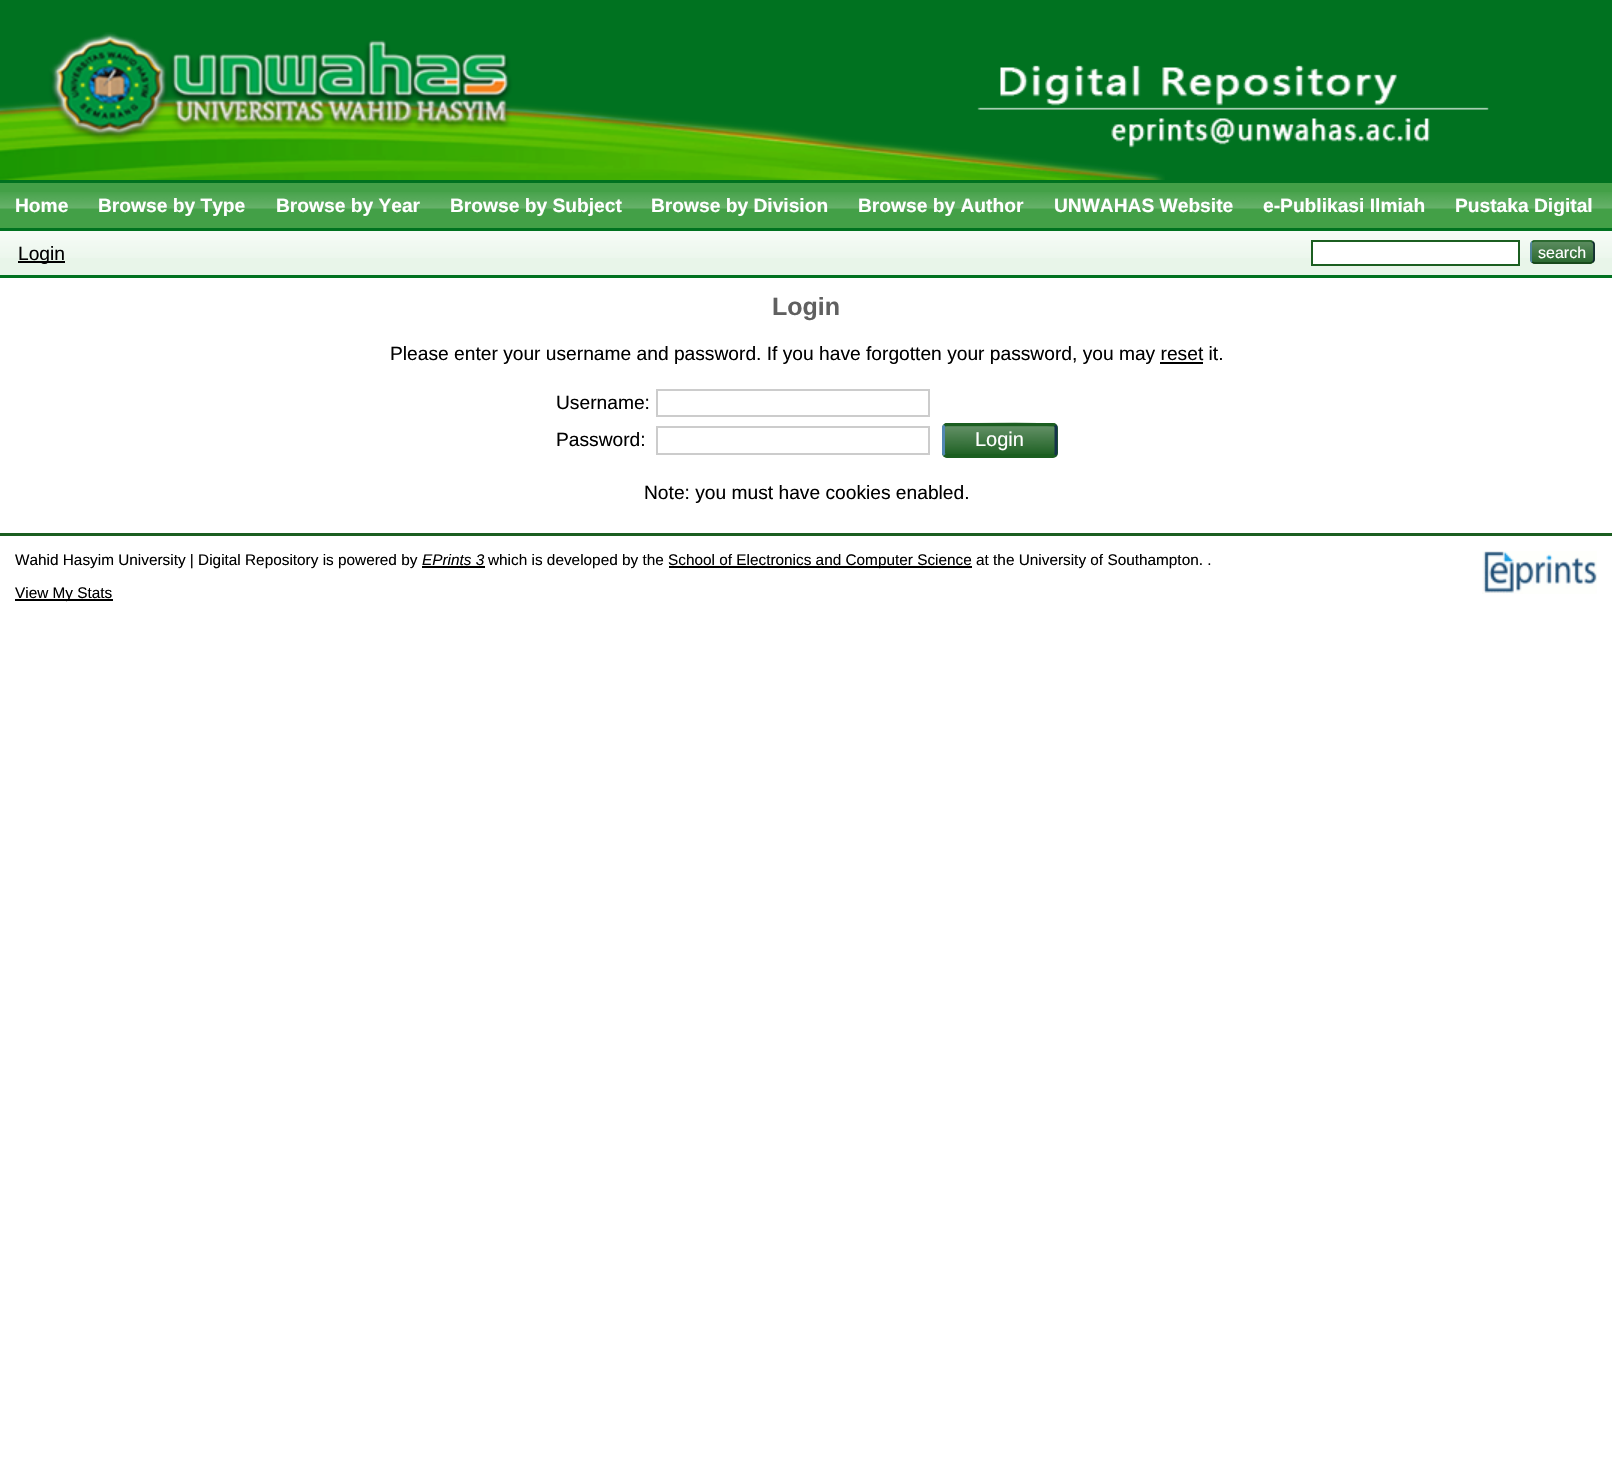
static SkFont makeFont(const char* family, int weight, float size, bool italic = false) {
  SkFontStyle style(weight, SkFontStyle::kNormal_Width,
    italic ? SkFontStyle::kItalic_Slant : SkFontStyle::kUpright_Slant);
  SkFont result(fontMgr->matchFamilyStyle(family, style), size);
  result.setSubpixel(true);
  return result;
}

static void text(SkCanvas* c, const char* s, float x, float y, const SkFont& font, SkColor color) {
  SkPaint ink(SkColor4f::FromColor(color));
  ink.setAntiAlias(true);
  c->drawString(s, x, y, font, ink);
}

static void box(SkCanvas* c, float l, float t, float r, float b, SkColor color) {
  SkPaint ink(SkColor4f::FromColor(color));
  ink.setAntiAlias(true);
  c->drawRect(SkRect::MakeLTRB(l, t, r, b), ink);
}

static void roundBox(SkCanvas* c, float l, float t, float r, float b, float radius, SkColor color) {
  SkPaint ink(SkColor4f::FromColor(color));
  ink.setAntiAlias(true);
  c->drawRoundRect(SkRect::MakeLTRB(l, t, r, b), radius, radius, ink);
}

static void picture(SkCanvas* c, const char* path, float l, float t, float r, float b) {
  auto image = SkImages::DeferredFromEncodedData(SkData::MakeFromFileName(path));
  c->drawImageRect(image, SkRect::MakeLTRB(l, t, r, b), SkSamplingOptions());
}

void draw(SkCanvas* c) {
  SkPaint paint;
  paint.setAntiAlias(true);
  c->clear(0xffffffff);
  box(c, 0, 0, 1612, 278, 0xff007220);
  picture(c, "img_02.png", 977, 65, 1489, 148);
  picture(c, "img_01.png", 0, 32, 1165, 180);
  box(c, 0, 183, 1612, 228, 0xff43a047);
  picture(c, "img_03.png", 0, 192, 1612, 209);
  SkFont face1 = makeFont("Liberation Sans", 700, 19.2f);
  text(c, "Home", 15, 212, face1, 0xffffffff);
  text(c, "Browse by Type", 98, 212, face1, 0xffffffff);
  text(c, "Browse by Year", 276, 212, face1, 0xffffffff);
  text(c, "Browse by Subject", 450, 212, face1, 0xffffffff);
  text(c, "Browse by Division", 651, 212, face1, 0xffffffff);
  text(c, "Browse by Author", 858, 212, face1, 0xffffffff);
  text(c, "UNWAHAS Website", 1054, 212, face1, 0xffffffff);
  text(c, "e-Publikasi Ilmiah", 1263, 212, face1, 0xffffffff);
  text(c, "Pustaka Digital", 1455, 212, face1, 0xffffffff);
  box(c, 0, 231, 1612, 275, 0xffe8f5e9);
  picture(c, "img_04.png", 0, 231, 1612, 258);
  box(c, 18, 261, 65, 263, 0xff000000);
  SkFont face2 = makeFont("Liberation Sans", 400, 19.2f);
  text(c, "Login", 18, 260, face2, 0xff000000);
  paint.setColor(0xffffffff);
  c->drawRect(SkRect::MakeLTRB(1312, 241, 1519, 265), paint);
  paint.setStyle(SkPaint::kStroke_Style);
  paint.setStrokeWidth(2);
  paint.setColor(0xff1b5e20);
  c->drawRect(SkRect::MakeLTRB(1312, 241, 1519, 265), paint);
  roundBox(c, 1530, 240, 1595, 264, 5, 0xff1b5e20);
  picture(c, "img_05.png", 1530, 240, 1595, 264);
  paint.setStrokeWidth(1.5f);
  c->drawPath(SkPathBuilder().moveTo(1532, 242).lineTo(1534, 241).lineTo(1590.5f, 241).lineTo(1592.5f, 242).detach(), paint);
  paint.setColor(0xff0d2131);
  c->drawPath(SkPathBuilder().moveTo(1592.5f, 242).cubicTo(1593.5f, 242.5f, 1594, 243.5f, 1594, 244.5f).lineTo(1594, 259.5f).cubicTo(1594, 260.5f, 1593.5f, 261.5f, 1592.5f, 262).detach(), paint);
  paint.setColor(0xff123f15);
  c->drawPath(SkPathBuilder().moveTo(1592.5f, 262).lineTo(1590.5f, 263).lineTo(1534, 263).lineTo(1532, 262).detach(), paint);
  paint.setColor(0xff5287b3);
  c->drawPath(SkPathBuilder().moveTo(1532, 262).cubicTo(1531, 261.5f, 1531, 260.5f, 1531, 259.5f).lineTo(1531, 244.5f).cubicTo(1531, 243.5f, 1531, 242.5f, 1532, 242).detach(), paint);
  SkFont face3 = makeFont("Liberation Sans", 400, 16);
  text(c, "search", 1538, 258, face3, 0xffffffff);
  SkFont face4 = makeFont("Liberation Sans", 700, 25);
  text(c, "Login", 772, 315, face4, 0xff606060);
  text(c, "Please enter your username and password. If you have forgotten your password, you may reset it.", 390, 360, face2, 0xff000000);
  box(c, 1160, 362, 1203, 364, 0xff000000);
  text(c, "Username:", 556, 409, face2, 0xff000000);
  paint.setStrokeWidth(2);
  paint.setColor(0xffcccccc);
  c->drawRect(SkRect::MakeLTRB(657, 390, 929, 416), paint);
  text(c, "Password:", 556, 446, face2, 0xff000000);
  c->drawRect(SkRect::MakeLTRB(657, 427, 929, 454), paint);
  roundBox(c, 942, 423, 1058, 458, 5, 0xff1b5e20);
  picture(c, "img_06.png", 942, 425, 1058, 454);
  paint.setStrokeWidth(3);
  paint.setColor(0xff1b5e20);
  c->drawPath(SkPathBuilder().moveTo(944.5f, 425.5f).lineTo(946.5f, 424.5f).lineTo(964, 424.5f).cubicTo(973.5f, 424.5f, 1052.5f, 423.5f, 1054.5f, 425).lineTo(1055, 425.5f).detach(), paint);
  paint.setColor(0xff13324a);
  c->drawPath(SkPathBuilder().moveTo(1055, 425.5f).cubicTo(1055.5f, 426, 1056, 426.5f, 1056, 427.5f).lineTo(1056, 453).cubicTo(1056, 454, 1055.5f, 454.5f, 1055, 455).detach(), paint);
  paint.setColor(0xff1b5e20);
  c->drawPath(SkPathBuilder().moveTo(1055, 455).lineTo(1054.5f, 455.5f).cubicTo(1052.5f, 457, 973.5f, 456, 964, 456).lineTo(946.5f, 456).lineTo(944.5f, 455).detach(), paint);
  paint.setColor(0xff5287b3);
  c->drawPath(SkPathBuilder().moveTo(944.5f, 455).cubicTo(944, 454.5f, 943.5f, 454, 943.5f, 453).lineTo(943.5f, 427.5f).cubicTo(943.5f, 426.5f, 944, 426, 944.5f, 425.5f).detach(), paint);
  SkFont face5 = makeFont("Liberation Sans", 400, 20);
  text(c, "Login", 975, 446, face5, 0xffffffff);
  text(c, "Note: you must have cookies enabled.", 644, 499, face2, 0xff000000);
  box(c, 0, 533, 1612, 536, 0xff1b5e20);
  SkFont face6 = makeFont("Liberation Sans", 400, 15.35f);
  text(c, "Wahid Hasyim University | Digital Repository is powered by", 15, 565, face6, 0xff000000);
  SkFont face7 = makeFont("Liberation Sans", 400, 15.35f, true);
  text(c, "EPrints 3", 422, 565, face7, 0xff000000);
  box(c, 422, 566, 485, 568, 0xff000000);
  text(c, "which is developed by the", 488, 565, face6, 0xff000000);
  box(c, 669, 566, 972, 568, 0xff000000);
  text(c, "School of Electronics and Computer Science at the University of Southampton. .", 668, 565, face6, 0xff000000);
  picture(c, "img_07.png", 1482, 551, 1597, 594);
  box(c, 15, 599, 113, 601, 0xff000000);
  text(c, "View My Stats", 15, 598, face6, 0xff000000);
}
